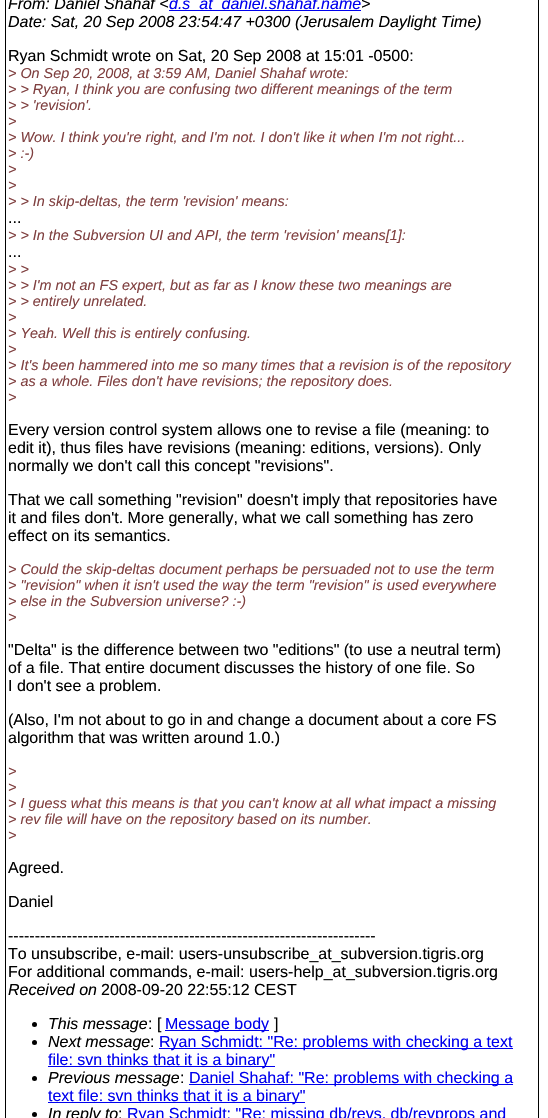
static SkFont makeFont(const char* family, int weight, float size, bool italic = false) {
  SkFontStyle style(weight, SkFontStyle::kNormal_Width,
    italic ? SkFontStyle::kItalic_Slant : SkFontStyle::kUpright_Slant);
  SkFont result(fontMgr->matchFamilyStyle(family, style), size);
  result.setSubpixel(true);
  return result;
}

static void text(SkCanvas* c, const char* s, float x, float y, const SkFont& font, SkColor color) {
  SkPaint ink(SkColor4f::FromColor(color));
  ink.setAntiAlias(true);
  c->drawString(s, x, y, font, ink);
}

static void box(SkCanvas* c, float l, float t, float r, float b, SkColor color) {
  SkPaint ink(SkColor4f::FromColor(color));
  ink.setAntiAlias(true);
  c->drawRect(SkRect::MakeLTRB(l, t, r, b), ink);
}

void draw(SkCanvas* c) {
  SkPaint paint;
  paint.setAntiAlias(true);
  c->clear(0xffffffff);
  paint.setStyle(SkPaint::kStroke_Style);
  paint.setStrokeWidth(1);
  paint.setColor(0xff000000);
  c->drawRect(SkRect::MakeLTRB(5.5f, -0.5f, 538.5f, 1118.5f), paint);
  SkFont face1 = makeFont("Liberation Sans", 400, 16, true);
  text(c, "From: Daniel Shahaf <", 8, 9, face1, 0xff000000);
  box(c, 169, 10, 361, 11, 0xff0000ee);
  text(c, "d.s_at_daniel.shahaf.name", 169, 9, face1, 0xff0000ee);
  text(c, ">", 361, 9, face1, 0xff000000);
  text(c, "Date: Sat, 20 Sep 2008 23:54:47 +0300 (Jerusalem Daylight Time)", 8, 27, face1, 0xff000000);
  SkFont face2 = makeFont("Liberation Sans", 400, 16);
  text(c, "Ryan Schmidt wrote on Sat, 20 Sep 2008 at 15:01 -0500:", 8, 61, face2, 0xff000000);
  SkFont face3 = makeFont("Liberation Sans", 400, 14.4f, true);
  text(c, "> On Sep 20, 2008, at 3:59 AM, Daniel Shahaf wrote:", 8, 78, face3, 0xff804040);
  text(c, "> > Ryan, I think you are confusing two different meanings of the term", 8, 94, face3, 0xff804040);
  text(c, "> > 'revision'.", 8, 110, face3, 0xff804040);
  text(c, ">", 8, 126, face3, 0xff804040);
  text(c, "> Wow. I think you're right, and I'm not. I don't like it when I'm not right...", 8, 142, face3, 0xff804040);
  text(c, "> :-)", 8, 158, face3, 0xff804040);
  text(c, ">", 8, 174, face3, 0xff804040);
  text(c, ">", 8, 190, face3, 0xff804040);
  text(c, "> > In skip-deltas, the term 'revision' means:", 8, 206, face3, 0xff804040);
  text(c, "...", 8, 223, face2, 0xff000000);
  text(c, "> > In the Subversion UI and API, the term 'revision' means[1]:", 8, 240, face3, 0xff804040);
  text(c, "...", 8, 257, face2, 0xff000000);
  text(c, "> >", 8, 274, face3, 0xff804040);
  text(c, "> > I'm not an FS expert, but as far as I know these two meanings are", 8, 290, face3, 0xff804040);
  text(c, "> > entirely unrelated.", 8, 306, face3, 0xff804040);
  text(c, ">", 8, 322, face3, 0xff804040);
  text(c, "> Yeah. Well this is entirely confusing.", 8, 338, face3, 0xff804040);
  text(c, ">", 8, 354, face3, 0xff804040);
  text(c, "> It's been hammered into me so many times that a revision is of the repository", 8, 370, face3, 0xff804040);
  text(c, "> as a whole. Files don't have revisions; the repository does.", 8, 386, face3, 0xff804040);
  text(c, ">", 8, 402, face3, 0xff804040);
  text(c, "Every version control system allows one to revise a file (meaning: to", 8, 435, face2, 0xff000000);
  text(c, "edit it), thus files have revisions (meaning: editions, versions). Only", 8, 453, face2, 0xff000000);
  text(c, "normally we don't call this concept \"revisions\".", 8, 471, face2, 0xff000000);
  text(c, "That we call something \"revision\" doesn't imply that repositories have", 8, 505, face2, 0xff000000);
  text(c, "it and files don't. More generally, what we call something has zero", 8, 523, face2, 0xff000000);
  text(c, "effect on its semantics.", 8, 541, face2, 0xff000000);
  text(c, "> Could the skip-deltas document perhaps be persuaded not to use the term", 8, 574, face3, 0xff804040);
  text(c, "> \"revision\" when it isn't used the way the term \"revision\" is used everywhere", 8, 590, face3, 0xff804040);
  text(c, "> else in the Subversion universe? :-)", 8, 606, face3, 0xff804040);
  text(c, ">", 8, 622, face3, 0xff804040);
  text(c, "\"Delta\" is the difference between two \"editions\" (to use a neutral term)", 8, 655, face2, 0xff000000);
  text(c, "of a file. That entire document discusses the history of one file. So", 8, 673, face2, 0xff000000);
  text(c, "I don't see a problem.", 8, 691, face2, 0xff000000);
  text(c, "(Also, I'm not about to go in and change a document about a core FS", 8, 725, face2, 0xff000000);
  text(c, "algorithm that was written around 1.0.)", 8, 743, face2, 0xff000000);
  text(c, ">", 8, 776, face3, 0xff804040);
  text(c, ">", 8, 792, face3, 0xff804040);
  text(c, "> I guess what this means is that you can't know at all what impact a missing", 8, 808, face3, 0xff804040);
  text(c, "> rev file will have on the repository based on its number.", 8, 824, face3, 0xff804040);
  text(c, ">", 8, 840, face3, 0xff804040);
  text(c, "Agreed.", 8, 873, face2, 0xff000000);
  text(c, "Daniel", 8, 907, face2, 0xff000000);
  text(c, "---------------------------------------------------------------------", 8, 941, face2, 0xff000000);
  text(c, "To unsubscribe, e-mail: users-unsubscribe_at_subversion.tigris.org", 8, 959, face2, 0xff000000);
  text(c, "For additional commands, e-mail: users-help_at_subversion.tigris.org", 8, 977, face2, 0xff000000);
  text(c, "Received on", 8, 995, face1, 0xff000000);
  text(c, "2008-09-20 22:55:12 CEST", 101, 995, face2, 0xff000000);
  paint.setStyle(SkPaint::kFill_Style);
  c->drawCircle(34.5f, 1024.5f, 2.5f, paint);
  text(c, "This message", 48, 1029, face1, 0xff000000);
  text(c, ": [", 148, 1029, face2, 0xff000000);
  box(c, 165, 1030, 269, 1031, 0xff0000ee);
  text(c, "Message body", 165, 1029, face2, 0xff0000ee);
  text(c, "]", 274, 1029, face2, 0xff000000);
  c->drawCircle(34.5f, 1042.5f, 2.5f, paint);
  text(c, "Next message", 48, 1047, face1, 0xff000000);
  text(c, ":", 150, 1047, face2, 0xff000000);
  box(c, 159, 1048, 513, 1049, 0xff0000ee);
  text(c, "Ryan Schmidt: \"Re: problems with checking a text", 159, 1047, face2, 0xff0000ee);
  box(c, 48, 1066, 275, 1067, 0xff0000ee);
  text(c, "file: svn thinks that it is a binary\"", 48, 1065, face2, 0xff0000ee);
  c->drawCircle(34.5f, 1078.5f, 2.5f, paint);
  text(c, "Previous message", 48, 1083, face1, 0xff000000);
  text(c, ":", 180, 1083, face2, 0xff000000);
  box(c, 189, 1084, 513, 1085, 0xff0000ee);
  text(c, "Daniel Shahaf: \"Re: problems with checking a", 189, 1083, face2, 0xff0000ee);
  box(c, 48, 1102, 305, 1103, 0xff0000ee);
  text(c, "text file: svn thinks that it is a binary\"", 48, 1101, face2, 0xff0000ee);
  c->drawCircle(34.5f, 1114.5f, 2.5f, paint);
  text(c, "In reply to", 48, 1119, face1, 0xff000000);
  text(c, ":", 118, 1119, face2, 0xff000000);
  text(c, "Ryan Schmidt: \"Re: missing db/revs, db/revprops and", 127, 1119, face2, 0xff0000ee);
}
